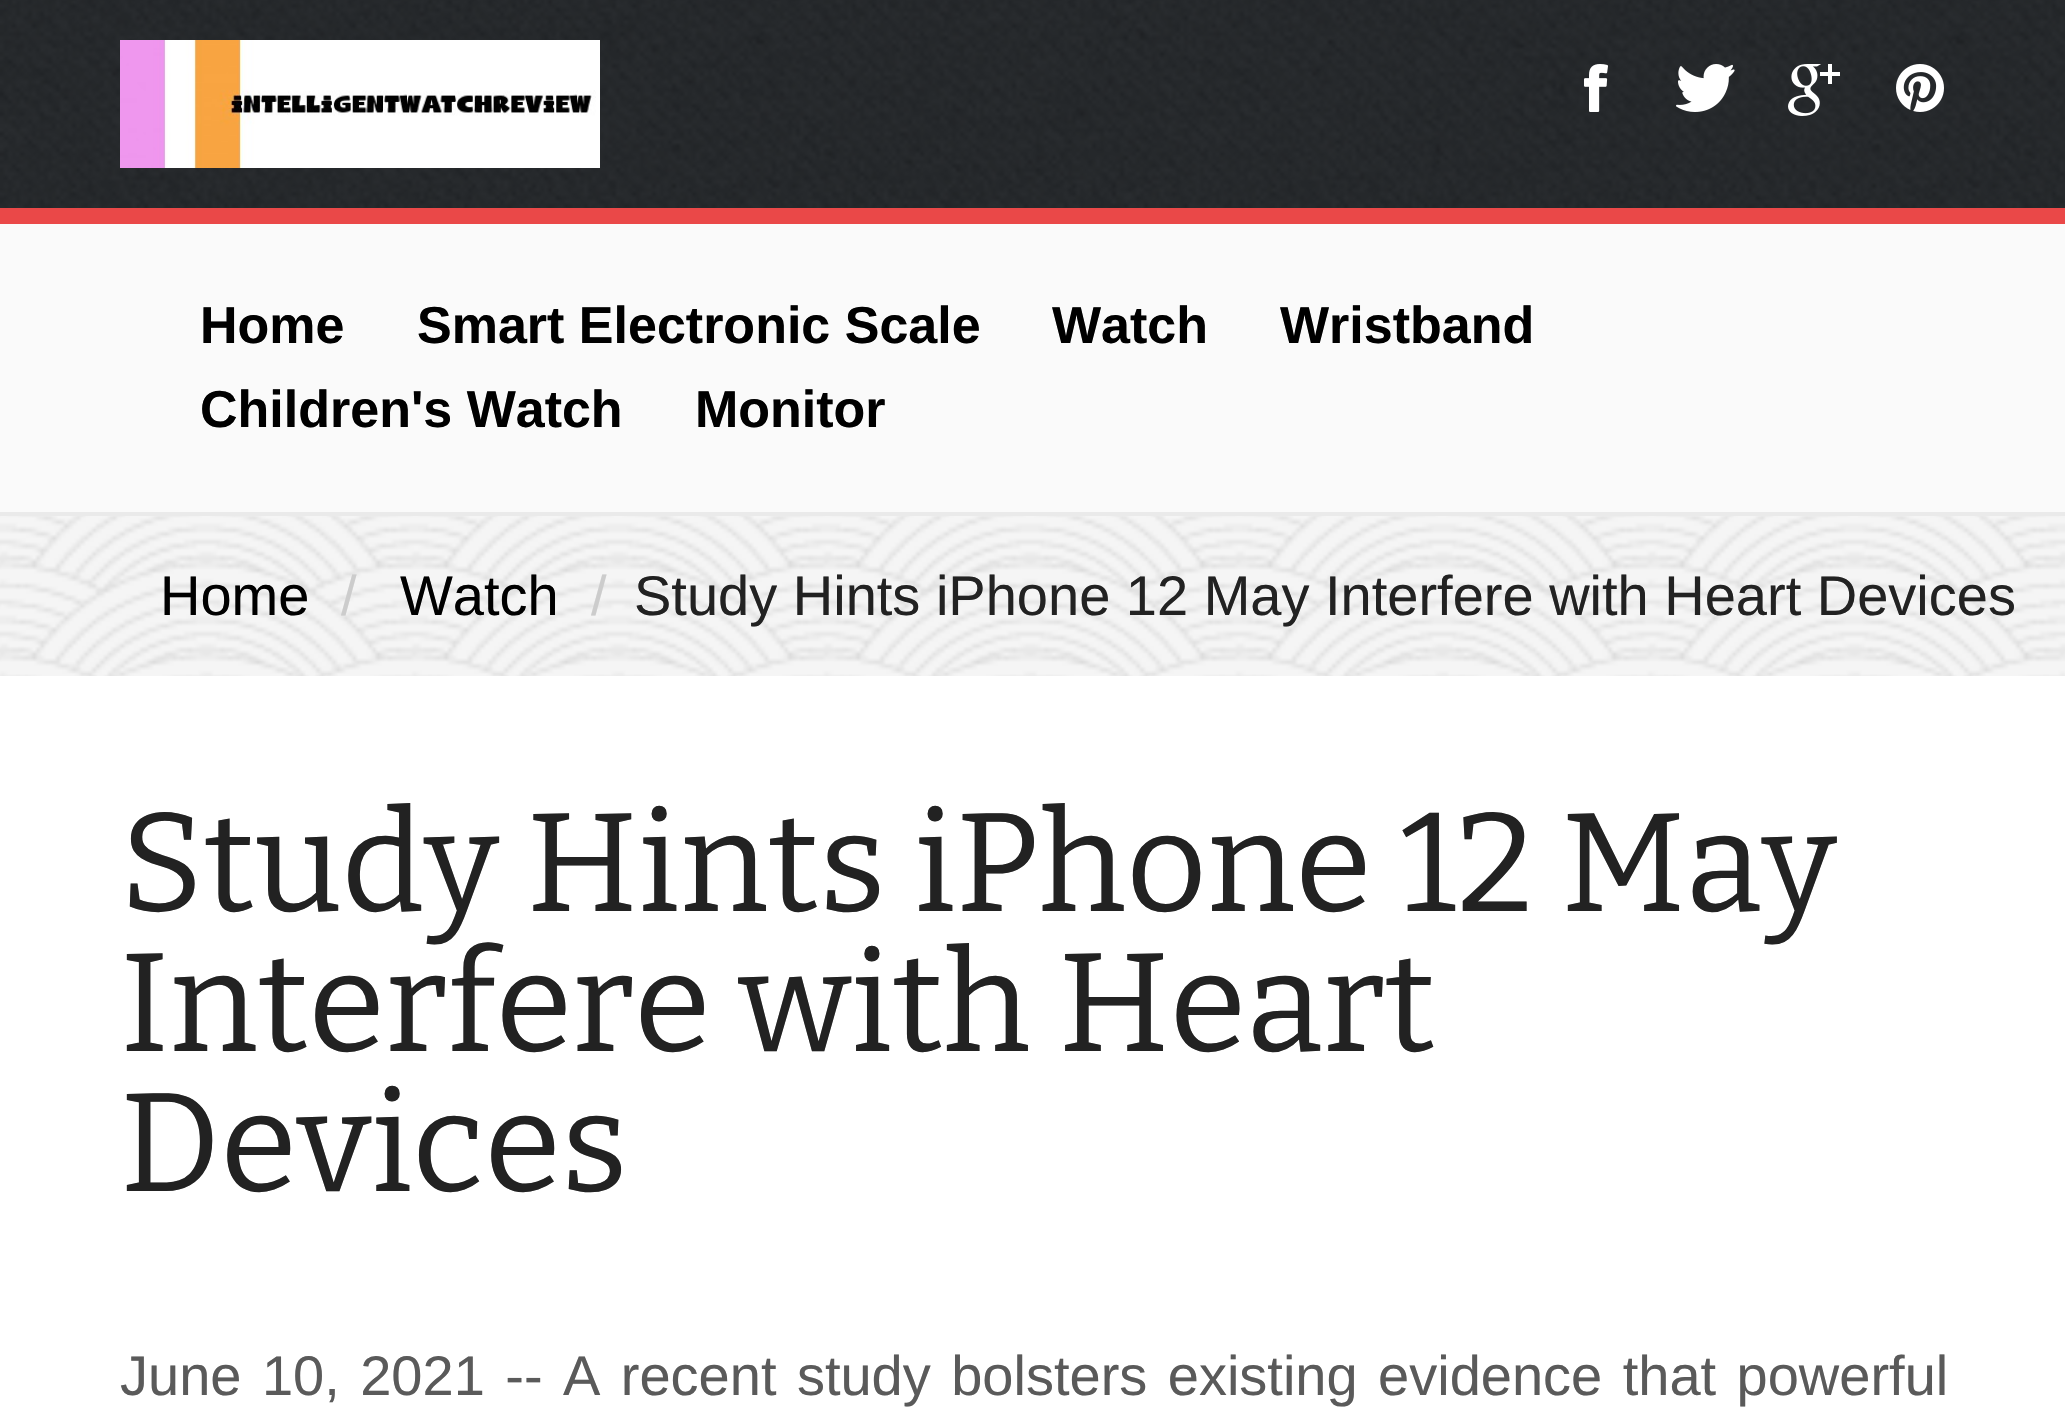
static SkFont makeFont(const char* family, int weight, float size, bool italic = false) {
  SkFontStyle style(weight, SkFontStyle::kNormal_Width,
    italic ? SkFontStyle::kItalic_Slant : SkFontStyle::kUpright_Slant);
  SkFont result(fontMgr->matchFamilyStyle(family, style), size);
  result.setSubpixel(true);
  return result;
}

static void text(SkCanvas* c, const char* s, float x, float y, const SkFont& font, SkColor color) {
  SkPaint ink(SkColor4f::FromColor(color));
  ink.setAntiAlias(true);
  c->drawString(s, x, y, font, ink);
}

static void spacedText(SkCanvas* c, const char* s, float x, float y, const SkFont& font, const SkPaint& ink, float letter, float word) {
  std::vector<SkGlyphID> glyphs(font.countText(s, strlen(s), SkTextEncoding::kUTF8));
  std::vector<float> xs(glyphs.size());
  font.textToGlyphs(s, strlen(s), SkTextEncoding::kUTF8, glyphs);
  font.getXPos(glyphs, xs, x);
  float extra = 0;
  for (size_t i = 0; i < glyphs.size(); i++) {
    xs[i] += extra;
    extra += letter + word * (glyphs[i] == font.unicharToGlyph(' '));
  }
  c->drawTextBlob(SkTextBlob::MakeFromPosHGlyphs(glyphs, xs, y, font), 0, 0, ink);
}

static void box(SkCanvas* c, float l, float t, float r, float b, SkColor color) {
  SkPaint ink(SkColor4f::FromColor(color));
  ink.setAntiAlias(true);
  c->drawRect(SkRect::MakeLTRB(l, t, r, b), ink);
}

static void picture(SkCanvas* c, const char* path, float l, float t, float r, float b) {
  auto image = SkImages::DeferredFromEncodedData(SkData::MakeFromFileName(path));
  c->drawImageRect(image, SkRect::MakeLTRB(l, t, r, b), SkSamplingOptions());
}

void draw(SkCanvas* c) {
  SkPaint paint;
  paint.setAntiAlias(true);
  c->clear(0xffffffff);
  picture(c, "img_01.png", 0, 516, 2065, 676);
  picture(c, "img_02.png", 0, 0, 2065, 208);
  box(c, 0, 208, 2065, 224, 0xffea4848);
  picture(c, "img_03.png", 120, 40, 600, 168);
  picture(c, "img_04.png", 1584, 64, 1608, 112);
  picture(c, "img_05.png", 1676, 64, 1735, 112);
  picture(c, "img_06.png", 1788, 64, 1840, 116);
  picture(c, "img_07.png", 1896, 64, 1944, 112);
  box(c, 0, 224, 2065, 512, 0xfffafafa);
  box(c, 0, 512, 2065, 516, 0xffeaeaea);
  SkFont face1 = makeFont("Liberation Sans", 700, 52);
  text(c, "Home", 200, 343, face1, 0xff000000);
  text(c, "Smart Electronic Scale", 417, 343, face1, 0xff000000);
  text(c, "Watch", 1052, 343, face1, 0xff000000);
  text(c, "Wristband", 1280, 343, face1, 0xff000000);
  text(c, "Children's Watch", 200, 427, face1, 0xff000000);
  text(c, "Monitor", 695, 427, face1, 0xff000000);
  SkFont face2 = makeFont("Liberation Sans", 400, 56);
  text(c, "Home", 160, 615, face2, 0xff000000);
  text(c, "/", 341, 615, face2, 0xffcccccc);
  text(c, "Watch", 400, 615, face2, 0xff000000);
  text(c, "/", 591, 615, face2, 0xffcccccc);
  text(c, "Study Hints iPhone 12 May Interfere with Heart Devices", 634, 615, face2, 0xff222222);
  SkFont face3 = makeFont("Bitter", 400, 140);
  text(c, "Study Hints iPhone 12 May", 120, 911, face3, 0xff222222);
  text(c, "Interfere with Heart", 120, 1051, face3, 0xff222222);
  text(c, "Devices", 120, 1191, face3, 0xff222222);
  paint.setColor(0xff5a5a5a);
  spacedText(c, "June 10, 2021 -- A recent study bolsters existing evidence that powerful", 120, 1395, face2, paint, 0, 4.9f);
}
